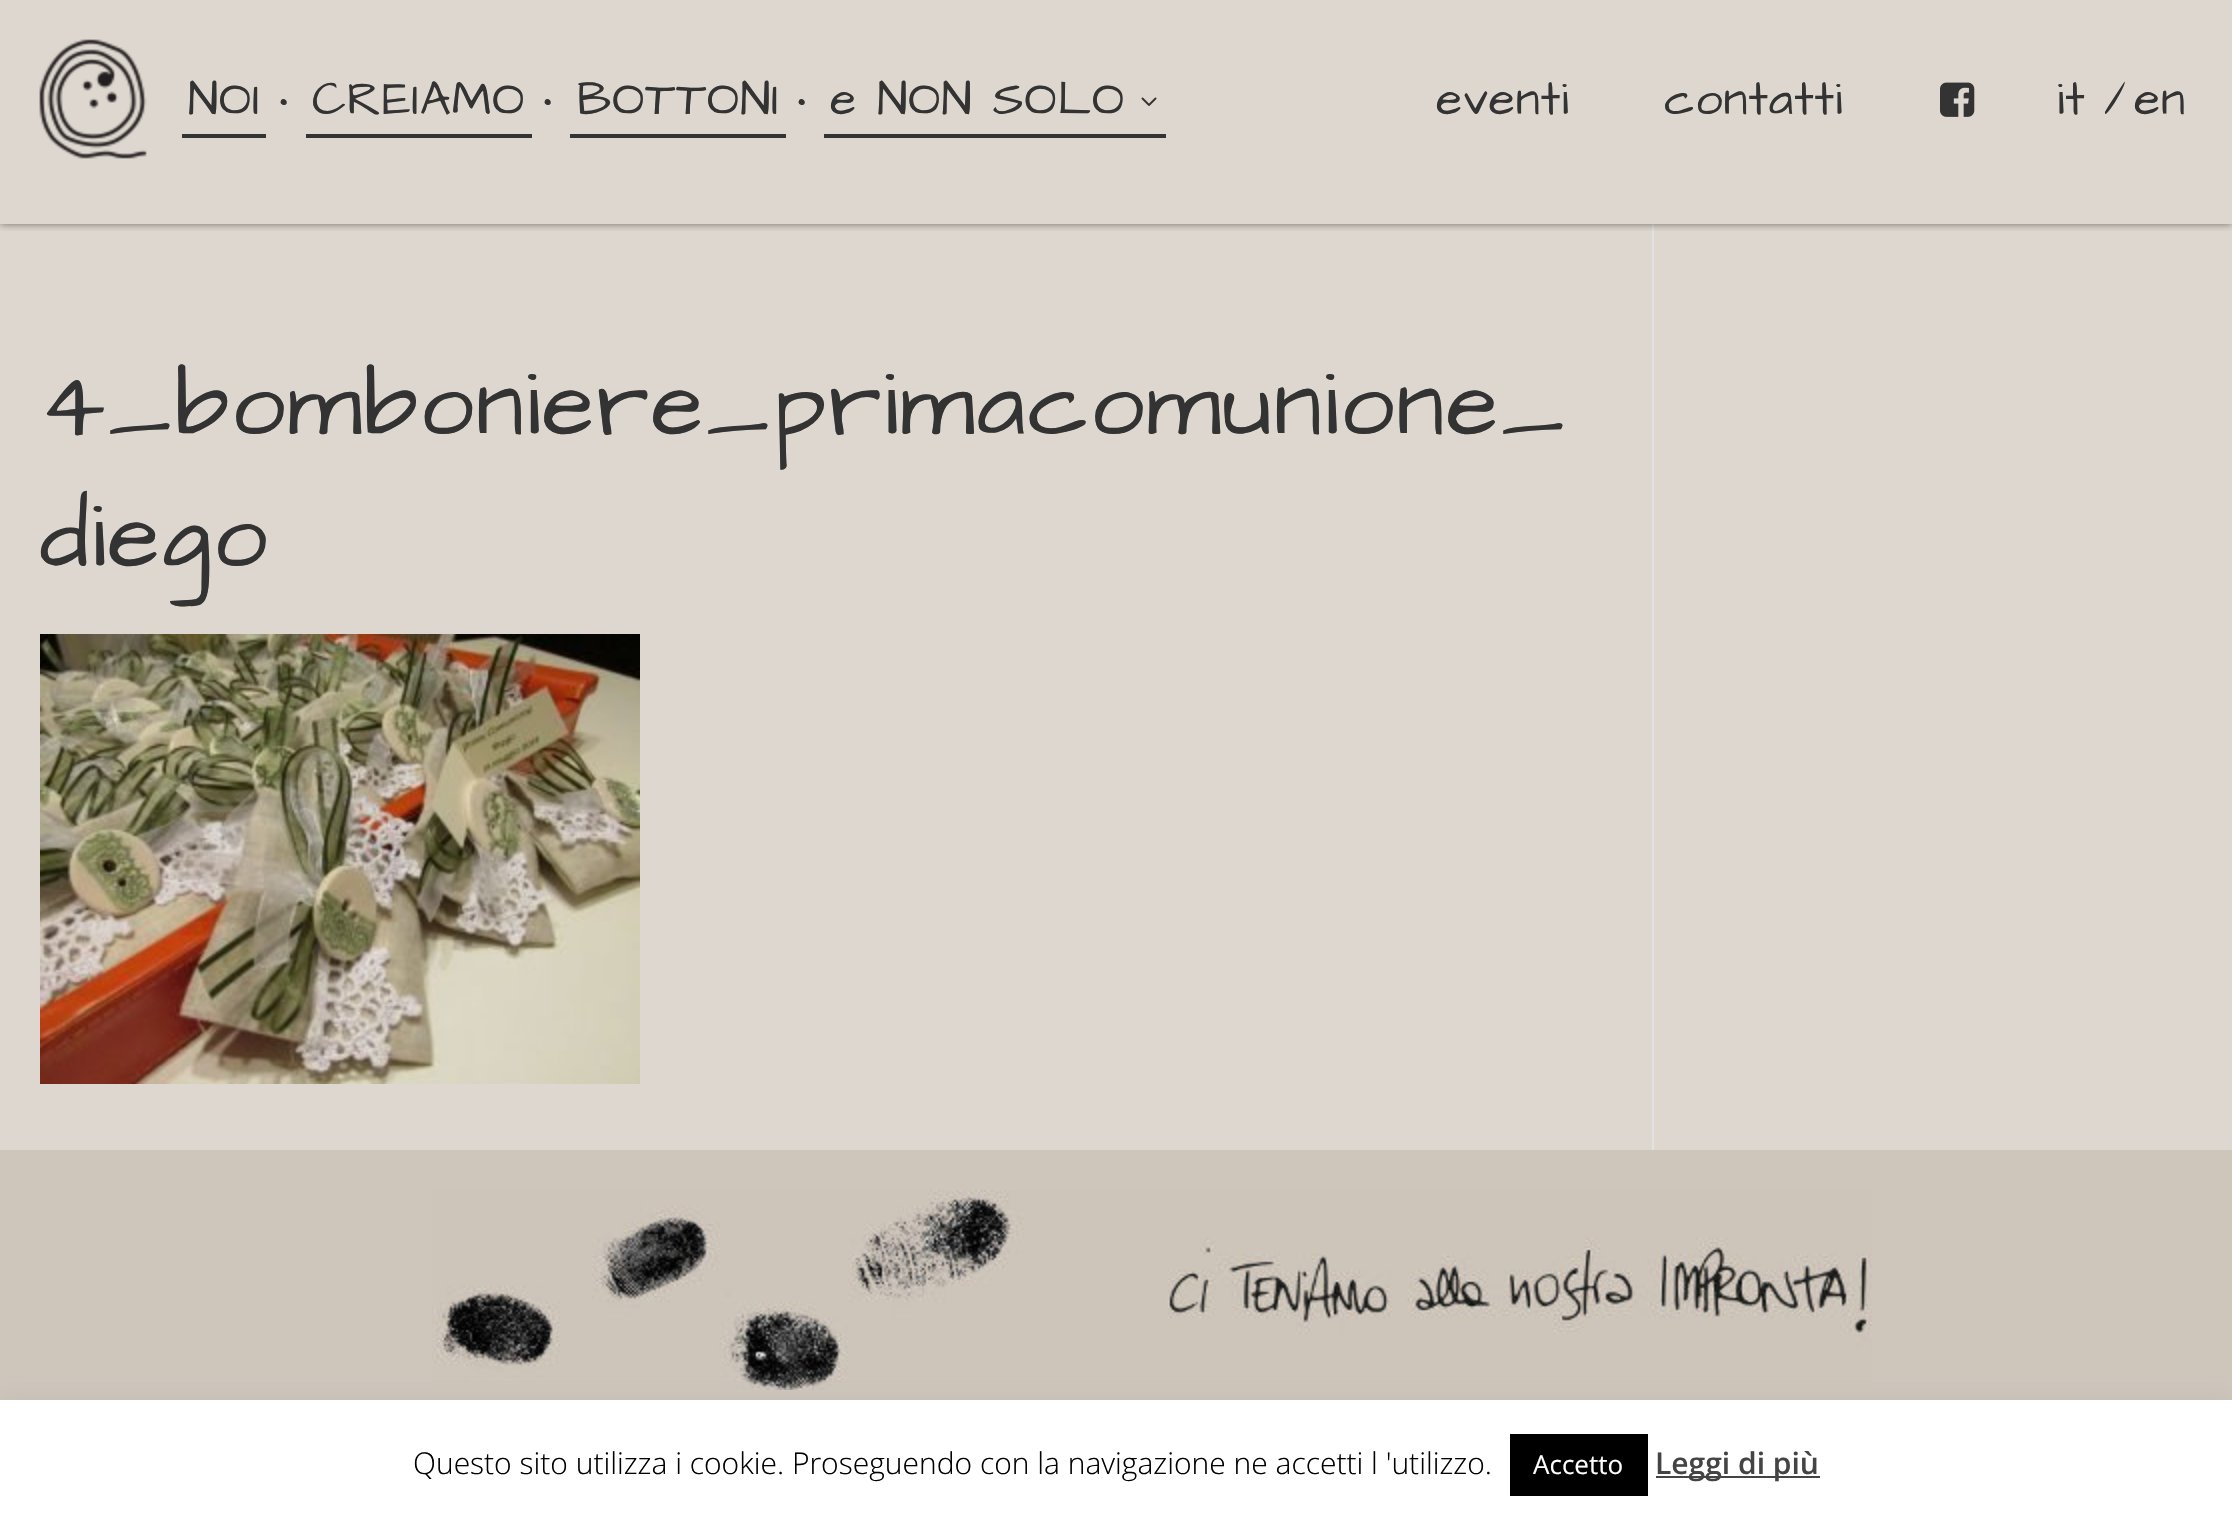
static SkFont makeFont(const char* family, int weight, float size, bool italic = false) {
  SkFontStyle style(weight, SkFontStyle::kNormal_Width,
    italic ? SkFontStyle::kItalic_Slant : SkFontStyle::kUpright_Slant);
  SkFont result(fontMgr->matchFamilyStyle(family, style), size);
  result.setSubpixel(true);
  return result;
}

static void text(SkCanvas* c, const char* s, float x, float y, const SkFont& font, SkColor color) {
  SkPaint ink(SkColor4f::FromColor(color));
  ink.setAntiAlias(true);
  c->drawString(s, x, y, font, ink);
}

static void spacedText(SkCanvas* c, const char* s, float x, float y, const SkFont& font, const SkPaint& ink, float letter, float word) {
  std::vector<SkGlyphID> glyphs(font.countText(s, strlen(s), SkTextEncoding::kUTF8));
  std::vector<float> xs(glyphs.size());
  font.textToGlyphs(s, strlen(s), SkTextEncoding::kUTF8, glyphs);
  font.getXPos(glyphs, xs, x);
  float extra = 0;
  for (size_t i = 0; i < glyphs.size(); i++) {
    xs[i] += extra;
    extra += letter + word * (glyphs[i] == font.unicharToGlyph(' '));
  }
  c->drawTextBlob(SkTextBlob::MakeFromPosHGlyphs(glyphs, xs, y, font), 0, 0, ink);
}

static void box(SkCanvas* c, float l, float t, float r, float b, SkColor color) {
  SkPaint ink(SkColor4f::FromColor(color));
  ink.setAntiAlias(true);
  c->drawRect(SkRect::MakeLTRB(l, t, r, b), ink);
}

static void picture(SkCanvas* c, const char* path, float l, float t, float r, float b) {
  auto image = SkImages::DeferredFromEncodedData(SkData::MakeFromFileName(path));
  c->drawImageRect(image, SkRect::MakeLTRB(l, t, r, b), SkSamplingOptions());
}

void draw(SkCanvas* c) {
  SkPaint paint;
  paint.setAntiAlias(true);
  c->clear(0xffded7cf);
  box(c, 1652, 224, 1654, 1150, 0xffe2e2e2);
  c->save();
  c->clipRect(SkRect::MakeLTRB(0, 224, 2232, 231));
  paint.setColor(0x80000000);
  paint.setMaskFilter(SkMaskFilter::MakeBlur(kNormal_SkBlurStyle, 4));
  c->drawRect(SkRect::MakeLTRB(0, 0, 2232, 224), paint);
  paint.setMaskFilter(nullptr);
  c->restore();
  picture(c, "img_01.png", 39, 39, 147, 159);
  box(c, 182, 134, 266, 138, 0xff333333);
  SkFont face1 = makeFont("Architects Daughter", 400, 48);
  paint.setColor(0xff333333);
  spacedText(c, "NOI", 188, 114, face1, paint, 1, 0);
  spacedText(c, "•", 279, 114, face1, paint, 10, 0);
  box(c, 306, 134, 532, 138, 0xff333333);
  spacedText(c, "CREIAMO", 312, 114, face1, paint, 1, 0);
  spacedText(c, "•", 543, 114, face1, paint, 10, 0);
  box(c, 570, 134, 786, 138, 0xff333333);
  spacedText(c, "BOTTONI", 577, 114, face1, paint, 1, 0);
  spacedText(c, "•", 797, 114, face1, paint, 10, 0);
  box(c, 824, 134, 1166, 138, 0xff333333);
  spacedText(c, "e NON SOLO", 830, 114, face1, paint, 1, 0);
  picture(c, "img_02.png", 1141, 97, 1157, 106);
  spacedText(c, "eventi", 1436, 114, face1, paint, 1, 0);
  spacedText(c, "contatti", 1664, 114, face1, paint, 1, 0);
  picture(c, "img_03.png", 1940, 82, 1975, 117);
  spacedText(c, "it", 2057, 114, face1, paint, 1, 0);
  text(c, "/", 2104, 114, face1, 0xff333333);
  spacedText(c, "en", 2134, 114, face1, paint, 1, 0);
  SkFont face2 = makeFont("Architects Daughter", 400, 96);
  spacedText(c, "4_bomboniere_primacomunione_", 40, 434, face2, paint, 2, 0);
  spacedText(c, "diego", 40, 566, face2, paint, 2, 0);
  picture(c, "img_04.png", 40, 634, 640, 1084);
  box(c, 0, 1150, 2232, 1400, 0xffcec5bb);
  picture(c, "img_05.png", 432, 1190, 1872, 1390);
  paint.setColor(0x4dacabab);
  paint.setMaskFilter(SkMaskFilter::MakeBlur(kNormal_SkBlurStyle, 10));
  c->drawRect(SkRect::MakeLTRB(0, 1398, 2232, 1518), paint);
  paint.setMaskFilter(nullptr);
  box(c, 0, 1400, 2232, 1519, 0xffffffff);
  SkFont face3 = makeFont("Open Sans", 300, 30);
  text(c, "Questo sito utilizza i cookie. Proseguendo con la navigazione ne accetti l 'utilizzo.", 413, 1474, face3, 0xff000000);
  box(c, 1510, 1434, 1648, 1496, 0xff000000);
  SkFont face4 = makeFont("Open Sans", 400, 26);
  text(c, "Accetto", 1533, 1474, face4, 0xffffffff);
  box(c, 1656, 1476, 1820, 1478, 0xff444444);
  SkFont face5 = makeFont("Open Sans", 600, 30);
  text(c, "Leggi di più", 1655, 1474, face5, 0xff444444);
}
